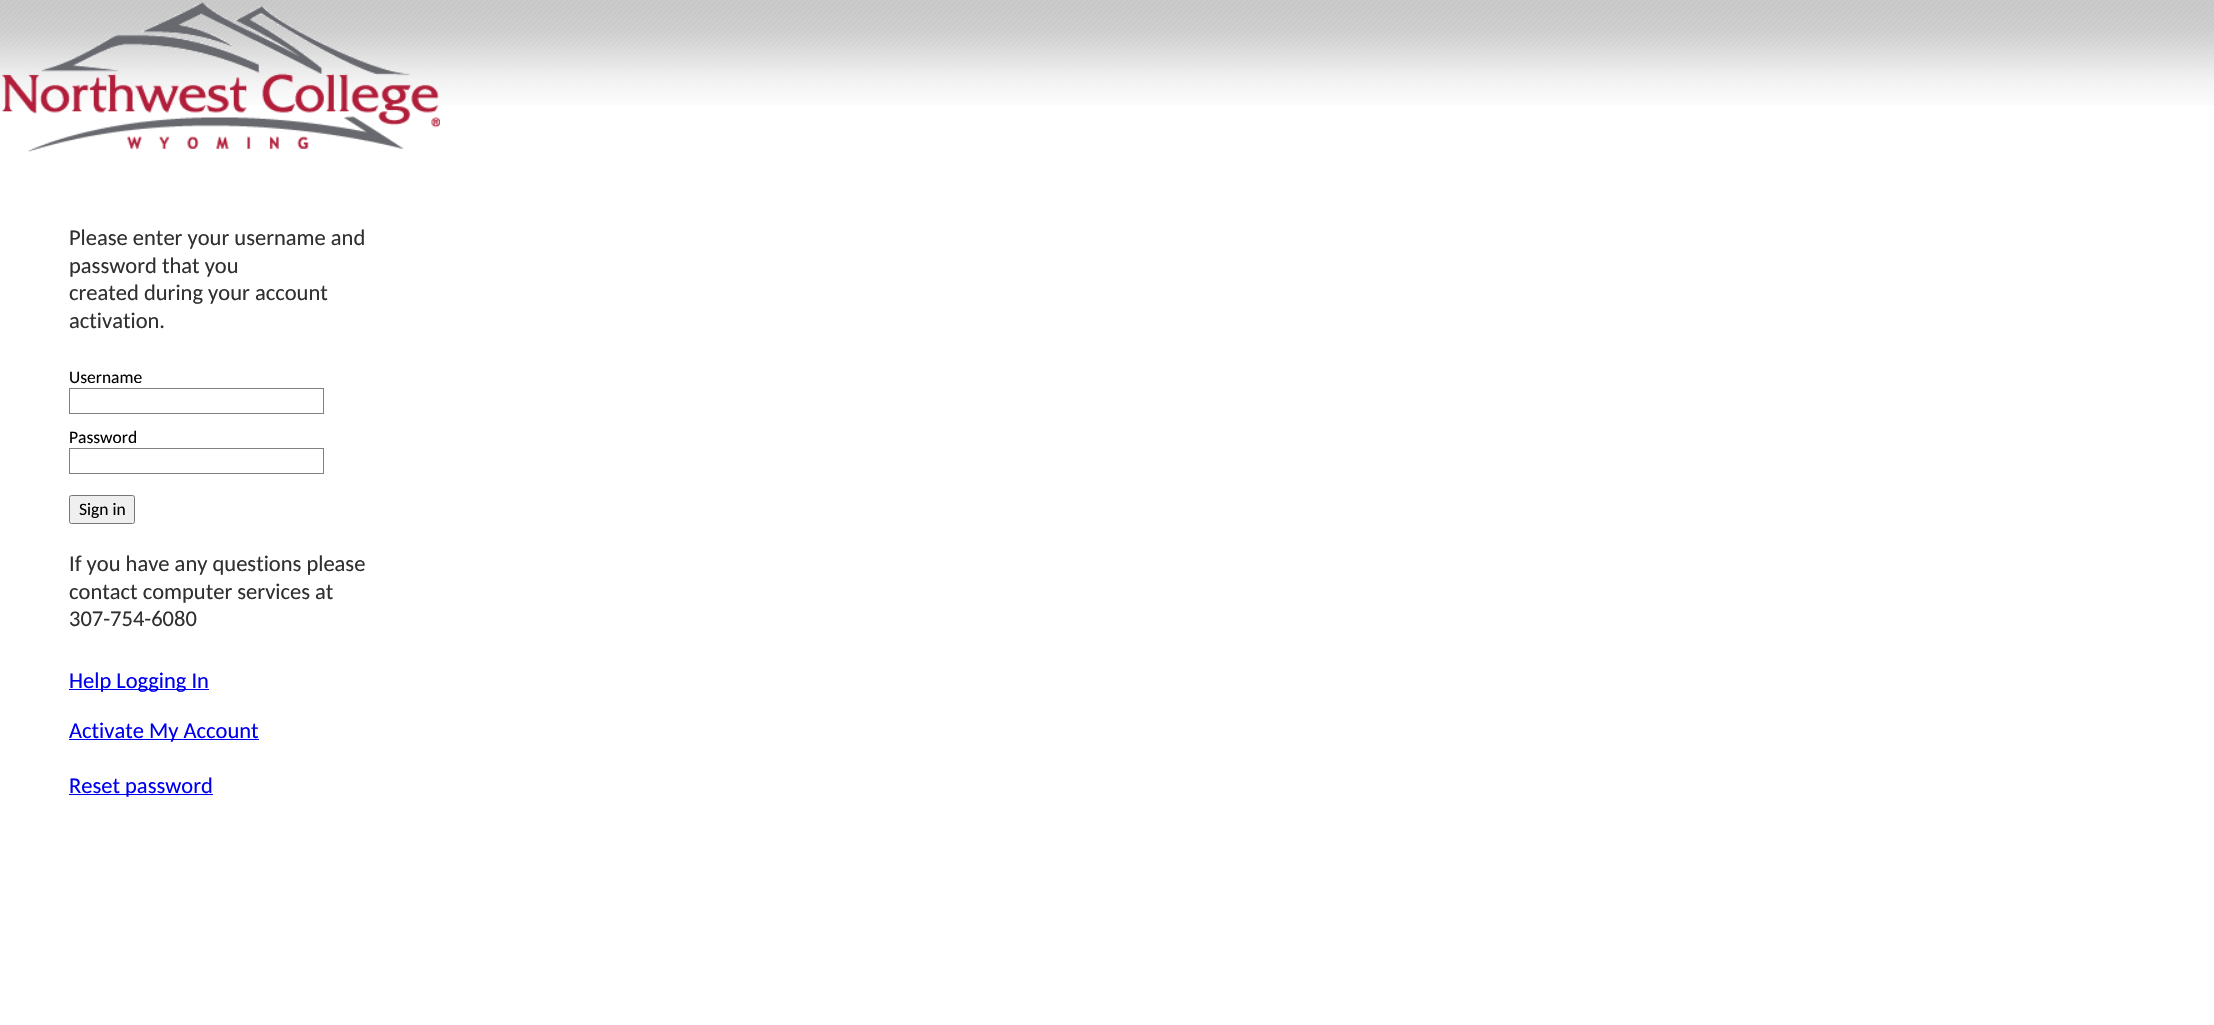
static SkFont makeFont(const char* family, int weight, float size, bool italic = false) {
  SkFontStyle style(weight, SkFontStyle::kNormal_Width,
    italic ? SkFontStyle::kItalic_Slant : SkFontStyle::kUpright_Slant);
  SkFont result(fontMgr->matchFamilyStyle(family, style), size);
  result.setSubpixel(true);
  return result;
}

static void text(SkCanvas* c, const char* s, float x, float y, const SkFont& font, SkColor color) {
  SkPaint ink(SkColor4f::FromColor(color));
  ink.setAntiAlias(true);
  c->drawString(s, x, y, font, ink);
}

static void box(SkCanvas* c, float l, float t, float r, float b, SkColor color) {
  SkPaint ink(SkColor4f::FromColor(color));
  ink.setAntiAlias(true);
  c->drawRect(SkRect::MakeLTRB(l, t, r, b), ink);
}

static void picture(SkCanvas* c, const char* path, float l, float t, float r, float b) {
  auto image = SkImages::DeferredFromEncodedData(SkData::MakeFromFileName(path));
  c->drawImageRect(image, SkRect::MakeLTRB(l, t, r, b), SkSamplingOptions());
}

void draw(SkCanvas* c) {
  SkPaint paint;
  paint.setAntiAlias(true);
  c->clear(0xffffffff);
  picture(c, "img_01.png", 0, 0, 2214, 105);
  picture(c, "img_02.png", 2, 2, 440, 152);
  SkFont face1 = makeFont("Carlito", 400, 22.5f);
  text(c, "Please enter your username and", 69, 245, face1, 0xff303030);
  text(c, "password that you", 69, 273, face1, 0xff303030);
  text(c, "created during your account", 69, 300, face1, 0xff303030);
  text(c, "activation.", 69, 328, face1, 0xff303030);
  SkFont face2 = makeFont("Carlito", 400, 17.5f);
  text(c, "Username", 69, 383, face2, 0xff000000);
  paint.setStyle(SkPaint::kStroke_Style);
  paint.setStrokeWidth(1);
  paint.setColor(0xff808080);
  c->drawRect(SkRect::MakeLTRB(69.5f, 388.5f, 323.5f, 413.5f), paint);
  text(c, "Password", 69, 443, face2, 0xff000000);
  c->drawRect(SkRect::MakeLTRB(69.5f, 448.5f, 323.5f, 473.5f), paint);
  paint.setStyle(SkPaint::kFill_Style);
  paint.setColor(0xffefefef);
  c->drawRoundRect(SkRect::MakeLTRB(69.5f, 495.5f, 134.5f, 523.5f), 2, 2, paint);
  paint.setStyle(SkPaint::kStroke_Style);
  paint.setColor(0xff767676);
  c->drawRoundRect(SkRect::MakeLTRB(69.5f, 495.5f, 134.5f, 523.5f), 2, 2, paint);
  text(c, "Sign in", 79, 515, face2, 0xff000000);
  text(c, "If you have any questions please", 69, 571, face1, 0xff303030);
  text(c, "contact computer services at", 69, 599, face1, 0xff303030);
  text(c, "307-754-6080", 69, 626, face1, 0xff303030);
  box(c, 69, 689, 209, 690, 0xff0000ee);
  text(c, "Help Logging In", 69, 688, face1, 0xff0000ee);
  box(c, 69, 739, 259, 740, 0xff0000ee);
  text(c, "Activate My Account", 69, 738, face1, 0xff0000ee);
  box(c, 69, 794, 213, 795, 0xff0000ee);
  text(c, "Reset password", 69, 793, face1, 0xff0000ee);
}
